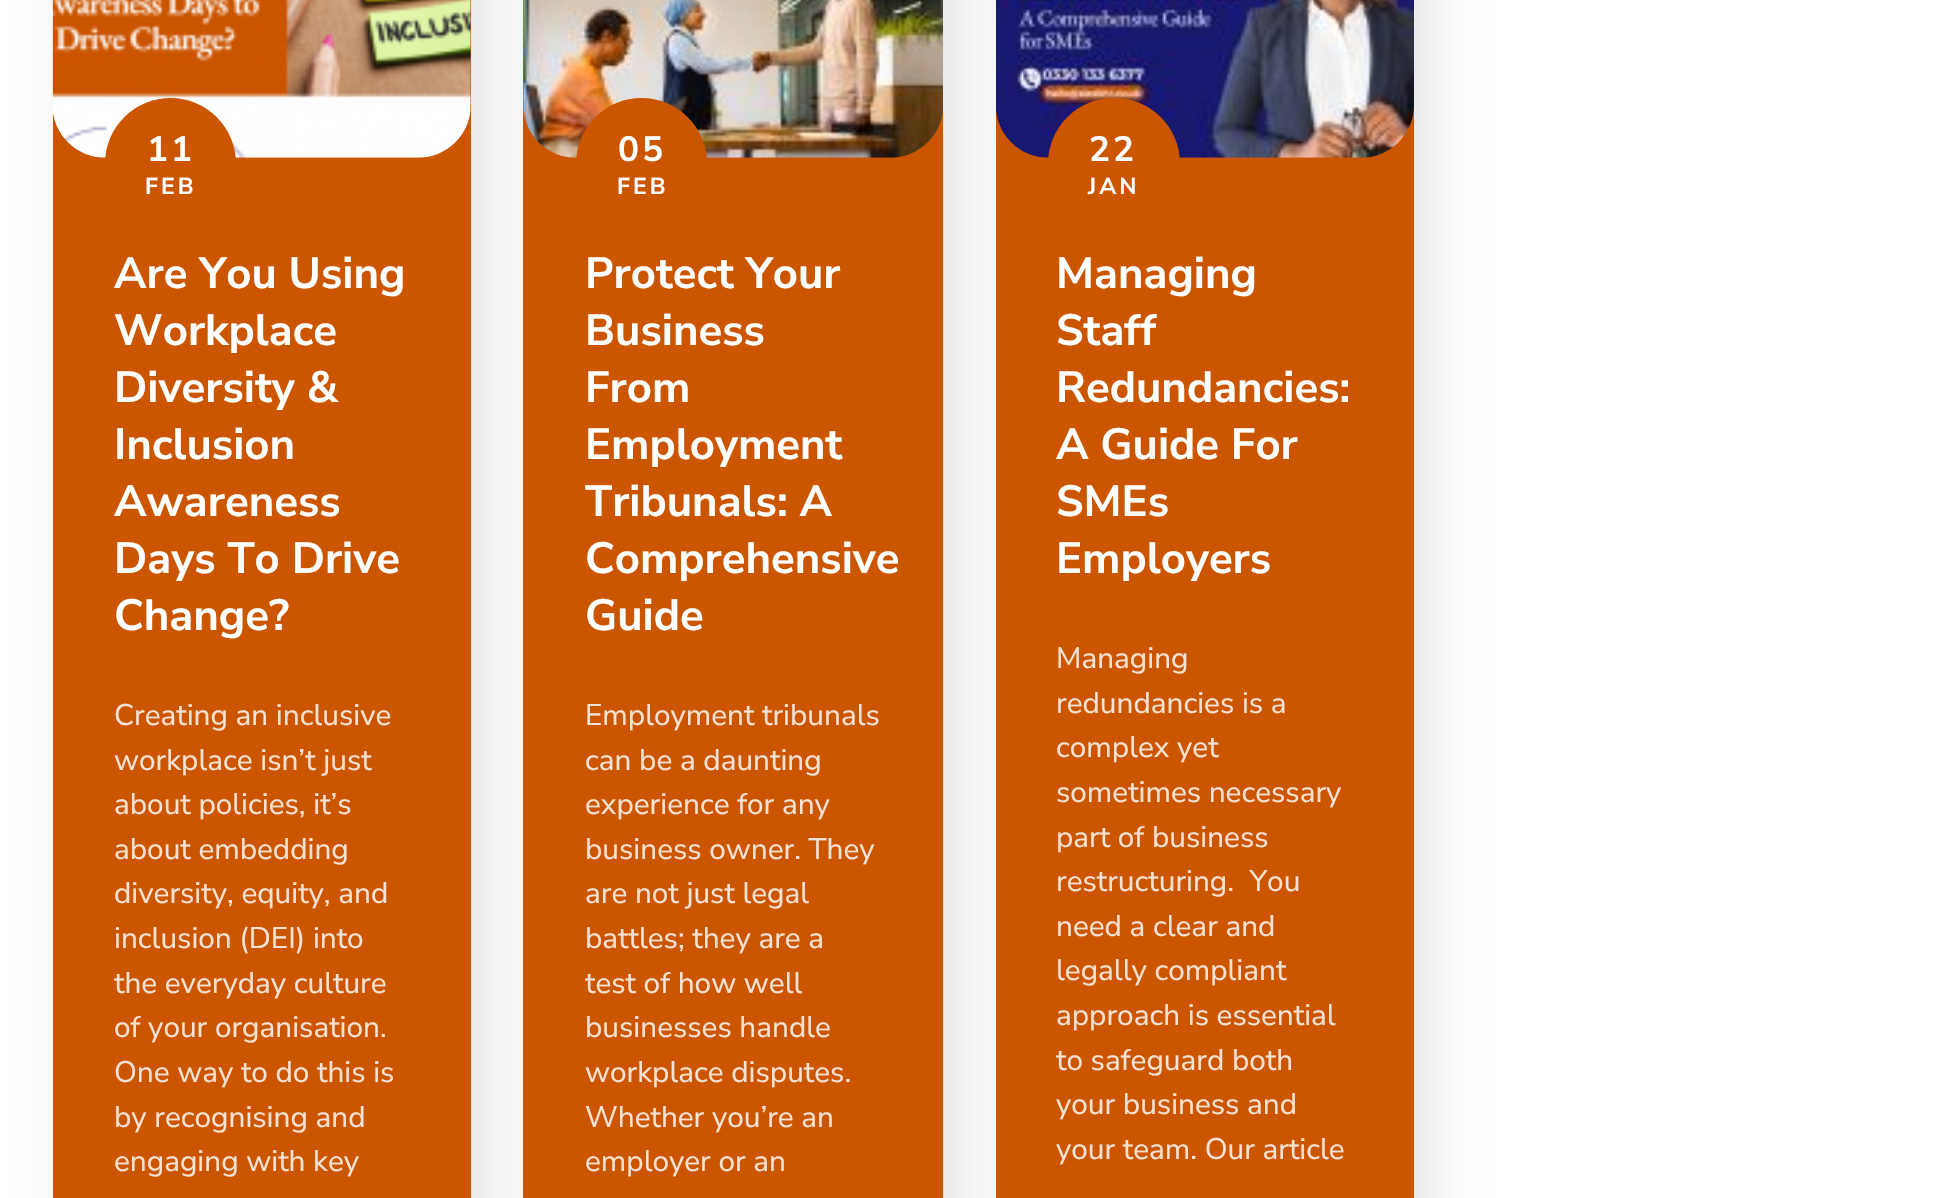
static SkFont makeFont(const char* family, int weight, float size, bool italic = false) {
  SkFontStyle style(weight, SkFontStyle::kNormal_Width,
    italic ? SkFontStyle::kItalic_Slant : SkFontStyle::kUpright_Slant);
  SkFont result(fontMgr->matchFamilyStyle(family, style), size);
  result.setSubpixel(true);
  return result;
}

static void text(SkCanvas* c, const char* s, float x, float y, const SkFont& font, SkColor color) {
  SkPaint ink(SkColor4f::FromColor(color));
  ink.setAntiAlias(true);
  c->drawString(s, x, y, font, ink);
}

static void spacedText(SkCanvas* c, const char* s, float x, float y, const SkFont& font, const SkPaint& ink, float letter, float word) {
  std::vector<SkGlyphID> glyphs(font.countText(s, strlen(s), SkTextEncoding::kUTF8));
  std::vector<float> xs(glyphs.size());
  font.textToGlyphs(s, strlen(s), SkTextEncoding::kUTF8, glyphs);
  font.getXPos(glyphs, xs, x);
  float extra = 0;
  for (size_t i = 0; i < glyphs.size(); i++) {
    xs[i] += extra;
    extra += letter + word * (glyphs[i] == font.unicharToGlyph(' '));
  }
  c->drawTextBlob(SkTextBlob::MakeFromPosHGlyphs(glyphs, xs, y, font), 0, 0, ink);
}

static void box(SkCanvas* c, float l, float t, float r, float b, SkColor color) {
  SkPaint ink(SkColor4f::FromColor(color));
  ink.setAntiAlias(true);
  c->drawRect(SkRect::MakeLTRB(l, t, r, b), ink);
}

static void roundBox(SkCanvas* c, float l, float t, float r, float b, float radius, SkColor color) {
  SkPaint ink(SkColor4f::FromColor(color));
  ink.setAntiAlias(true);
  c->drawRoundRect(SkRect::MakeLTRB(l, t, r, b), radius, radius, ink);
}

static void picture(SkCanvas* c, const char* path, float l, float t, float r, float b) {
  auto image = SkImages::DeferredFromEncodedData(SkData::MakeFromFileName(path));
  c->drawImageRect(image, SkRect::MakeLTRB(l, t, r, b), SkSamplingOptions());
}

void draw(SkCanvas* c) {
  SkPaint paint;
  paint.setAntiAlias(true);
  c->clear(0xffffffff);
  paint.setColor(0x1a000000);
  paint.setMaskFilter(SkMaskFilter::MakeBlur(kNormal_SkBlurStyle, 26));
  c->drawRoundRect(SkRect::MakeLTRB(70, -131, 488, 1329), 53, 53, paint);
  paint.setMaskFilter(nullptr);
  box(c, 53, 0, 471, 1198, 0xffcc5600);
  picture(c, "img_01.png", 52, 0, 471, 158);
  paint.setColor(0xffcc5600);
  c->drawCircle(170.5f, 163.5f, 65.5f, paint);
  SkFont face1 = makeFont("Nunito Sans", 700, 35);
  paint.setColor(0xffffffff);
  spacedText(c, "11", 147, 161, face1, paint, 3, 0);
  SkFont face2 = makeFont("Nunito Sans", 700, 23);
  spacedText(c, "FEB", 145, 194, face2, paint, 3, 0);
  SkFont face3 = makeFont("Nunito Sans", 700, 43.75f);
  text(c, "Are You Using", 114, 288, face3, 0xffffffff);
  text(c, "Workplace", 114, 345, face3, 0xffffffff);
  text(c, "Diversity &", 114, 402, face3, 0xffffffff);
  text(c, "Inclusion", 114, 459, face3, 0xffffffff);
  text(c, "Awareness", 114, 516, face3, 0xffffffff);
  text(c, "Days To Drive", 114, 573, face3, 0xffffffff);
  text(c, "Change?", 114, 630, face3, 0xffffffff);
  SkFont face4 = makeFont("Nunito Sans", 400, 29.75f);
  text(c, "Creating an inclusive", 114, 725, face4, 0xfff6e2d4);
  text(c, "workplace isn’t just", 114, 770, face4, 0xfff6e2d4);
  text(c, "about policies, it’s", 114, 814, face4, 0xfff6e2d4);
  text(c, "about embedding", 114, 859, face4, 0xfff6e2d4);
  text(c, "diversity, equity, and", 114, 903, face4, 0xfff6e2d4);
  text(c, "inclusion (DEI) into", 114, 948, face4, 0xfff6e2d4);
  text(c, "the everyday culture", 114, 993, face4, 0xfff6e2d4);
  text(c, "of your organisation.", 114, 1037, face4, 0xfff6e2d4);
  text(c, "One way to do this is", 114, 1082, face4, 0xfff6e2d4);
  text(c, "by recognising and", 114, 1127, face4, 0xfff6e2d4);
  text(c, "engaging with key", 114, 1171, face4, 0xfff6e2d4);
  paint.setColor(0x1a000000);
  paint.setMaskFilter(SkMaskFilter::MakeBlur(kNormal_SkBlurStyle, 26));
  c->drawRoundRect(SkRect::MakeLTRB(541, -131, 961, 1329), 53, 53, paint);
  paint.setMaskFilter(nullptr);
  box(c, 523, 0, 943, 1198, 0xffcc5600);
  picture(c, "img_02.png", 523, 0, 943, 158);
  paint.setColor(0xffcc5600);
  c->drawCircle(641.5f, 163.5f, 65.5f, paint);
  paint.setColor(0xffffffff);
  spacedText(c, "05", 618, 161, face1, paint, 3, 0);
  spacedText(c, "FEB", 617, 194, face2, paint, 3, 0);
  text(c, "Protect Your", 585, 288, face3, 0xffffffff);
  text(c, "Business", 585, 345, face3, 0xffffffff);
  text(c, "From", 585, 402, face3, 0xffffffff);
  text(c, "Employment", 585, 459, face3, 0xffffffff);
  text(c, "Tribunals: A", 585, 516, face3, 0xffffffff);
  text(c, "Comprehensive", 585, 573, face3, 0xffffffff);
  text(c, "Guide", 585, 630, face3, 0xffffffff);
  text(c, "Employment tribunals", 585, 725, face4, 0xfff6e2d4);
  text(c, "can be a daunting", 585, 770, face4, 0xfff6e2d4);
  text(c, "experience for any", 585, 814, face4, 0xfff6e2d4);
  text(c, "business owner. They", 585, 859, face4, 0xfff6e2d4);
  text(c, "are not just legal", 585, 903, face4, 0xfff6e2d4);
  text(c, "battles; they are a", 585, 948, face4, 0xfff6e2d4);
  text(c, "test of how well", 585, 993, face4, 0xfff6e2d4);
  text(c, "businesses handle", 585, 1037, face4, 0xfff6e2d4);
  text(c, "workplace disputes.", 585, 1082, face4, 0xfff6e2d4);
  text(c, "Whether you’re an", 585, 1127, face4, 0xfff6e2d4);
  text(c, "employer or an", 585, 1171, face4, 0xfff6e2d4);
  paint.setColor(0x1a000000);
  paint.setMaskFilter(SkMaskFilter::MakeBlur(kNormal_SkBlurStyle, 26));
  c->drawRoundRect(SkRect::MakeLTRB(1013, -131, 1432, 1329), 53, 53, paint);
  paint.setMaskFilter(nullptr);
  box(c, 996, 106, 1414, 1198, 0xffcc5600);
  picture(c, "img_03.png", 996, 0, 1414, 158);
  roundBox(c, 1048, 98, 1180, 229, 65.5f, 0xffcc5600);
  paint.setColor(0xffffffff);
  spacedText(c, "22", 1089, 161, face1, paint, 3, 0);
  spacedText(c, "JAN", 1088, 194, face2, paint, 3, 0);
  text(c, "Managing", 1056, 288, face3, 0xffffffff);
  text(c, "Staff", 1056, 345, face3, 0xffffffff);
  text(c, "Redundancies:", 1056, 402, face3, 0xffffffff);
  text(c, "A Guide For", 1056, 459, face3, 0xffffffff);
  text(c, "SMEs", 1056, 516, face3, 0xffffffff);
  text(c, "Employers", 1056, 573, face3, 0xffffffff);
  text(c, "Managing", 1056, 668, face4, 0xfff6e2d4);
  text(c, "redundancies is a", 1056, 713, face4, 0xfff6e2d4);
  text(c, "complex yet", 1056, 757, face4, 0xfff6e2d4);
  text(c, "sometimes necessary", 1056, 802, face4, 0xfff6e2d4);
  text(c, "part of business", 1056, 847, face4, 0xfff6e2d4);
  text(c, "restructuring.  You", 1056, 891, face4, 0xfff6e2d4);
  text(c, "need a clear and", 1056, 936, face4, 0xfff6e2d4);
  text(c, "legally compliant", 1056, 980, face4, 0xfff6e2d4);
  text(c, "approach is essential", 1056, 1025, face4, 0xfff6e2d4);
  text(c, "to safeguard both", 1056, 1070, face4, 0xfff6e2d4);
  text(c, "your business and", 1056, 1114, face4, 0xfff6e2d4);
  text(c, "your team. Our article", 1056, 1159, face4, 0xfff6e2d4);
}
